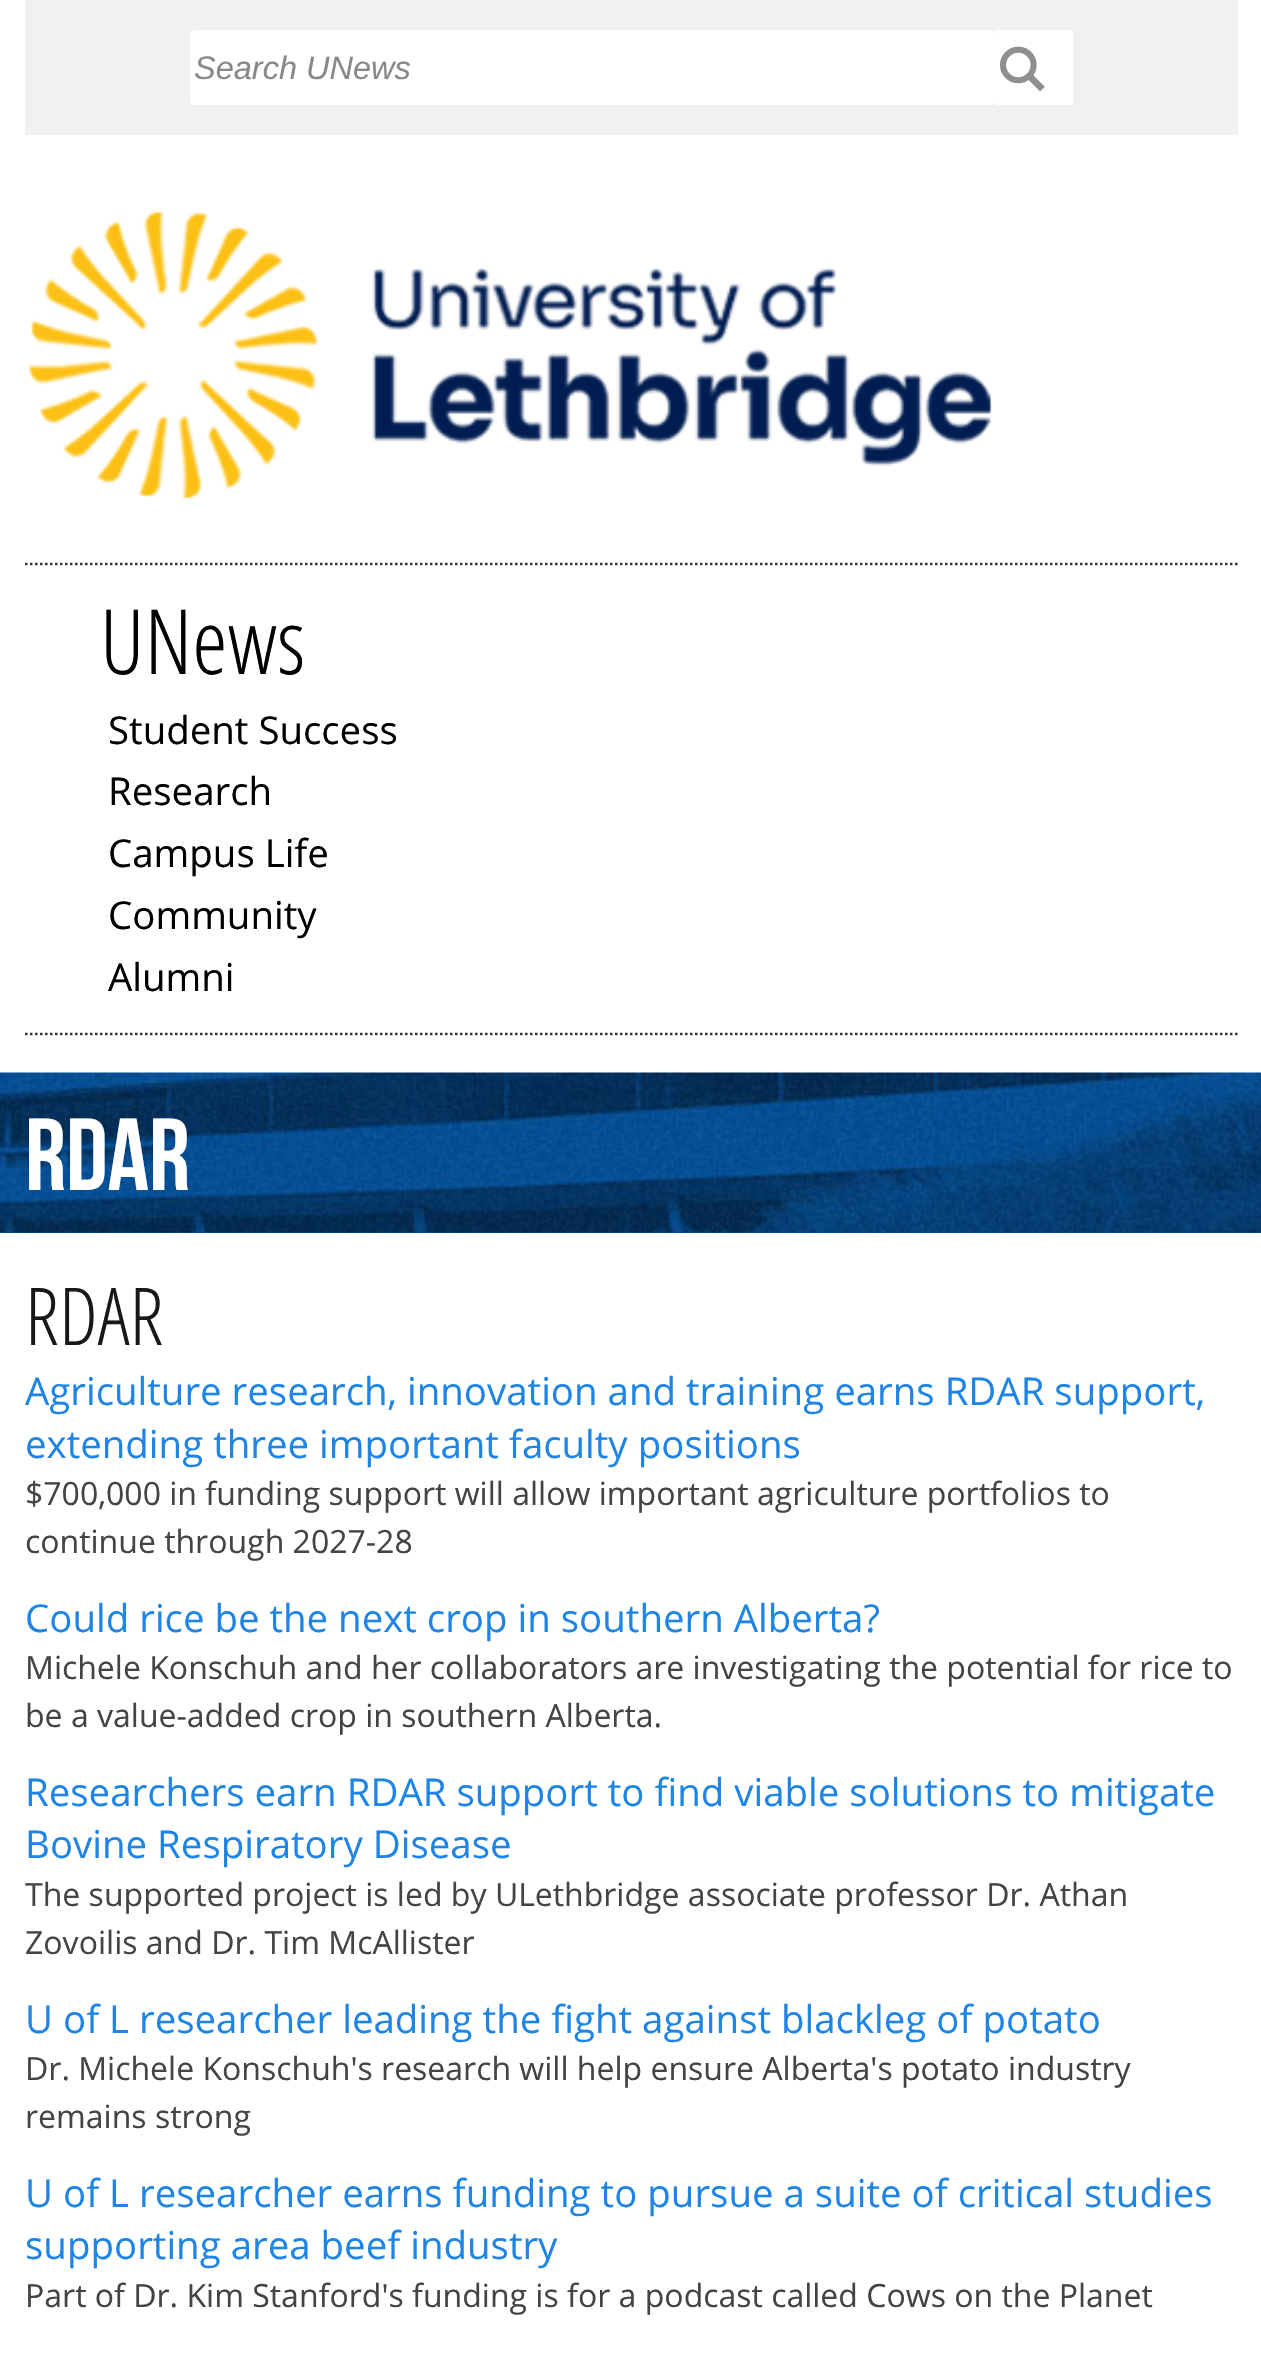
static SkFont makeFont(const char* family, int weight, float size, bool italic = false) {
  SkFontStyle style(weight, SkFontStyle::kNormal_Width,
    italic ? SkFontStyle::kItalic_Slant : SkFontStyle::kUpright_Slant);
  SkFont result(fontMgr->matchFamilyStyle(family, style), size);
  result.setSubpixel(true);
  return result;
}

static void text(SkCanvas* c, const char* s, float x, float y, const SkFont& font, SkColor color) {
  SkPaint ink(SkColor4f::FromColor(color));
  ink.setAntiAlias(true);
  c->drawString(s, x, y, font, ink);
}

static void box(SkCanvas* c, float l, float t, float r, float b, SkColor color) {
  SkPaint ink(SkColor4f::FromColor(color));
  ink.setAntiAlias(true);
  c->drawRect(SkRect::MakeLTRB(l, t, r, b), ink);
}

static void roundBox(SkCanvas* c, float l, float t, float r, float b, float radius, SkColor color) {
  SkPaint ink(SkColor4f::FromColor(color));
  ink.setAntiAlias(true);
  c->drawRoundRect(SkRect::MakeLTRB(l, t, r, b), radius, radius, ink);
}

static void picture(SkCanvas* c, const char* path, float l, float t, float r, float b) {
  auto image = SkImages::DeferredFromEncodedData(SkData::MakeFromFileName(path));
  c->drawImageRect(image, SkRect::MakeLTRB(l, t, r, b), SkSamplingOptions());
}

void draw(SkCanvas* c) {
  SkPaint paint;
  paint.setAntiAlias(true);
  c->clear(0xffffffff);
  box(c, 25, 0, 1238, 135, 0xfff1f1f1);
  roundBox(c, 190, 30, 995, 105, 5, 0xffffffff);
  SkFont face1 = makeFont("Liberation Sans", 400, 32.5f, true);
  text(c, "Search UNews", 194, 79, face1, 0xff888888);
  box(c, 995, 30, 1073, 105, 0xffffffff);
  picture(c, "img_01.png", 1000, 46, 1045, 92);
  picture(c, "img_02.png", 29, 212, 992, 499);
  paint.setStyle(SkPaint::kStroke_Style);
  paint.setStrokeWidth(2.5f);
  paint.setColor(0xff333333);
  paint.setPathEffect(SkDashPathEffect::Make({{2.5f, 2.5f}}, 0));
  c->drawPath(SkPathBuilder().moveTo(25, 564).lineTo(1237.5f, 564).detach(), paint);
  paint.setPathEffect(nullptr);
  paint.setPathEffect(SkDashPathEffect::Make({{2.5f, 2.5f}}, 0));
  c->drawPath(SkPathBuilder().moveTo(25, 1034).lineTo(1237.5f, 1034).detach(), paint);
  paint.setPathEffect(nullptr);
  SkFont face2 = makeFont("Open Sans", 300, 90);
  text(c, "UNews", 100, 674, face2, 0xff000000);
  SkFont face3 = makeFont("Open Sans", 400, 38.4f);
  text(c, "Student Success", 108, 744, face3, 0xff000000);
  text(c, "Research", 108, 805, face3, 0xff000000);
  text(c, "Campus Life", 108, 867, face3, 0xff000000);
  text(c, "Community", 108, 929, face3, 0xff000000);
  text(c, "Alumni", 108, 991, face3, 0xff000000);
  box(c, 0, 1232, 1261, 1233, 0xff06559e);
  picture(c, "img_03.png", 0, 1072, 1261, 1233);
  SkFont face4 = makeFont("Bebas Neue", 400, 102);
  text(c, "RDAR", 25, 1190, face4, 0xffffffff);
  SkFont face5 = makeFont("Open Sans", 300, 80);
  text(c, "RDAR", 25, 1345, face5, 0xff181818);
  text(c, "Agriculture research, innovation and training earns RDAR support,", 25, 1405, face3, 0xff1e85e6);
  text(c, "extending three important faculty positions", 25, 1458, face3, 0xff1e85e6);
  SkFont face6 = makeFont("Open Sans", 400, 32);
  text(c, "$700,000 in funding support will allow important agriculture portfolios to", 25, 1505, face6, 0xff444444);
  text(c, "continue through 2027-28", 25, 1553, face6, 0xff444444);
  text(c, "Could rice be the next crop in southern Alberta?", 25, 1632, face3, 0xff1e85e6);
  text(c, "Michele Konschuh and her collaborators are investigating the potential for rice to", 25, 1679, face6, 0xff444444);
  text(c, "be a value-added crop in southern Alberta.", 25, 1727, face6, 0xff444444);
  text(c, "Researchers earn RDAR support to find viable solutions to mitigate", 25, 1806, face3, 0xff1e85e6);
  text(c, "Bovine Respiratory Disease", 25, 1858, face3, 0xff1e85e6);
  text(c, "The supported project is led by ULethbridge associate professor Dr. Athan", 25, 1906, face6, 0xff444444);
  text(c, "Zovoilis and Dr. Tim McAllister", 25, 1954, face6, 0xff444444);
  text(c, "U of L researcher leading the fight against blackleg of potato", 25, 2033, face3, 0xff1e85e6);
  text(c, "Dr. Michele Konschuh's research will help ensure Alberta's potato industry", 25, 2080, face6, 0xff444444);
  text(c, "remains strong", 25, 2128, face6, 0xff444444);
  text(c, "U of L researcher earns funding to pursue a suite of critical studies", 25, 2207, face3, 0xff1e85e6);
  text(c, "supporting area beef industry", 25, 2259, face3, 0xff1e85e6);
  text(c, "Part of Dr. Kim Stanford's funding is for a podcast called Cows on the Planet", 25, 2307, face6, 0xff444444);
}
